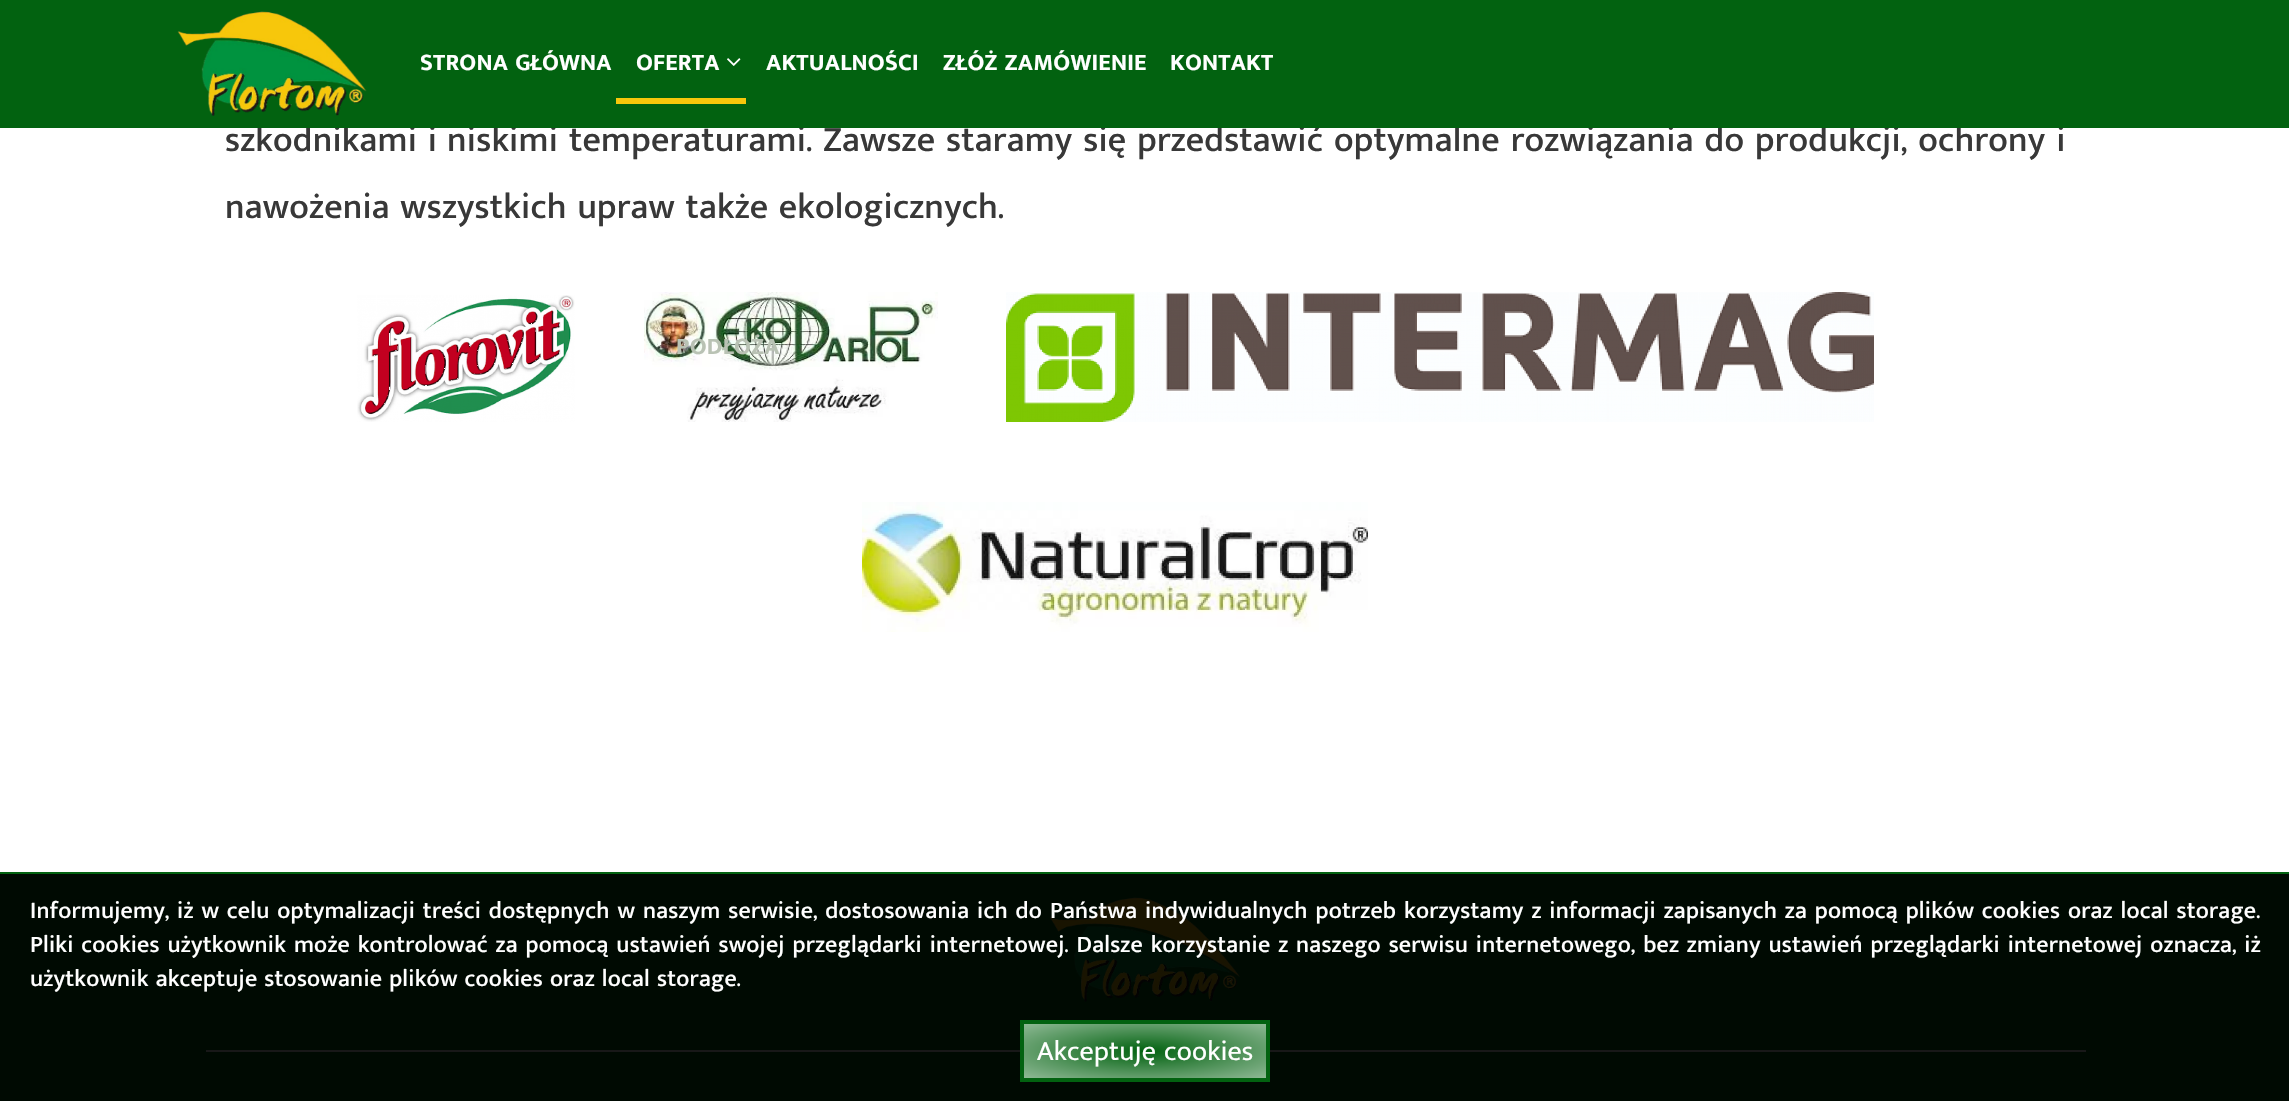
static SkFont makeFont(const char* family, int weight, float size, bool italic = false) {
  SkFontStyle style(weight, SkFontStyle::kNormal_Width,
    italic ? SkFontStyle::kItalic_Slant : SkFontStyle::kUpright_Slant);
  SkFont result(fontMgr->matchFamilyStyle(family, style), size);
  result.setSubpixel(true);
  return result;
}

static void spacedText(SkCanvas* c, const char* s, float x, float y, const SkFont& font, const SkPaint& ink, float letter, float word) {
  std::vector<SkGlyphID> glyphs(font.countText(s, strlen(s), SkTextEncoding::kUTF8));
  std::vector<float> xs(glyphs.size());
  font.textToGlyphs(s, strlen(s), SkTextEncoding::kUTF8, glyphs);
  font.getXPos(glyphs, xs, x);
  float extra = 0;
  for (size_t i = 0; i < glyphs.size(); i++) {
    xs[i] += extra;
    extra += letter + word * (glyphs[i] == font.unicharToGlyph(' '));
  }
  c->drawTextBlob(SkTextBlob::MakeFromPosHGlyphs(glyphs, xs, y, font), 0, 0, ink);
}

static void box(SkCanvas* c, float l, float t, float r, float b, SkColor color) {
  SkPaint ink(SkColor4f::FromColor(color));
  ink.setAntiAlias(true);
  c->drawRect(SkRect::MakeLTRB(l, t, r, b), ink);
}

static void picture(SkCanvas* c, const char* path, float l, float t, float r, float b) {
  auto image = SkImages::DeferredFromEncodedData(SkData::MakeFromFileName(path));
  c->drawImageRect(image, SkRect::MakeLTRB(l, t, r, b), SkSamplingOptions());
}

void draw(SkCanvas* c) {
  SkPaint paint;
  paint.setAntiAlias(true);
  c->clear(0xffffffff);
  SkFont face1 = makeFont("Mukta Malar", 500, 36);
  paint.setColor(0xff383838);
  spacedText(c, "szkodnikami i", 225, 151, face1, paint, 0.2f, 0);
  spacedText(c, "niskimi temperaturami. Zawsze staramy się przedstawić optymalne rozwiązania do produkcji, ochrony i", 447, 151, face1, paint, 0.2f, 0.4f);
  box(c, 0, 0, 2289, 128, 0xff026210);
  picture(c, "img_01.png", 177, 11, 367, 116);
  SkFont face2 = makeFont("Mukta Malar", 700, 24);
  paint.setColor(0xffffffff);
  spacedText(c, "STRONA GŁÓWNA", 420, 70, face2, paint, 0.2f, 0);
  spacedText(c, "OFERTA", 636, 70, face2, paint, 0.2f, 0);
  picture(c, "img_02.png", 727, 58, 741, 66);
  box(c, 616, 98, 746, 104, 0xfff7c70b);
  picture(c, "img_04.png", 644, 292, 938, 422);
  paint.setColor(0xffb9c2b4);
  spacedText(c, "PODŁOŻA", 676, 354, face2, paint, 0.2f, 0);
  paint.setColor(0xffffffff);
  spacedText(c, "AKTUALNOŚCI", 766, 70, face2, paint, 0.2f, 0);
  spacedText(c, "ZŁÓŻ ZAMÓWIENIE", 943, 70, face2, paint, 0.2f, 0);
  spacedText(c, "KONTAKT", 1170, 70, face2, paint, 0.2f, 0);
  paint.setColor(0xff383838);
  spacedText(c, "nawożenia wszystkich upraw także ekologicznych.", 225, 218, face1, paint, 0.2f, 0);
  picture(c, "img_03.png", 357, 295, 575, 422);
  picture(c, "img_05.png", 1006, 292, 1874, 422);
  picture(c, "img_06.png", 862, 502, 1368, 632);
  box(c, 0, 872, 2289, 874, 0xff026210);
  box(c, 0, 874, 2289, 1101, 0xff000a02);
  picture(c, "img_07.png", 1050, 897, 1240, 1002);
  box(c, 206, 1050, 2086, 1052, 0xff181818);
  SkFont face3 = makeFont("Mukta Malar", 500, 24);
  paint.setColor(0xffffffff);
  spacedText(c, "Informujemy, iż w celu optymalizacji treści dostępnych w naszym serwisie, dostosowania ich do Państwa indywidualnych potrzeb korzystamy z informacji zapisanych za pomocą plików cookies oraz local storage.", 30, 918, face3, paint, 0.2f, 0.75f);
  spacedText(c, "Pliki cookies użytkownik może kontrolować za pomocą ustawień swojej przeglądarki internetowej. Dalsze korzystanie z naszego serwisu internetowego, bez zmiany ustawień przeglądarki internetowej oznacza, iż", 30, 952, face3, paint, 0.2f, 0.75f);
  spacedText(c, "użytkownik akceptuje stosowanie plików cookies oraz local storage.", 30, 986, face3, paint, 0.2f, 0);
  {
    const SkColor colors[] = {0xff026210, 0xffffffff};
    const float stops[] = {0, 1};
    SkMatrix m = SkMatrix::Translate(1145, 1051).preScale(308, 69);
    paint.setShader(SkGradientShader::MakeRadial({0, 0}, 1, colors, stops, 2, SkTileMode::kClamp, 0, &m));
    paint.setAlpha(255);
  }
  c->drawRect(SkRect::MakeLTRB(1024, 1024, 1266, 1078), paint);
  paint.setStyle(SkPaint::kStroke_Style);
  paint.setStrokeWidth(4);
  paint.setShader(nullptr);
  paint.setColor(0xff026210);
  c->drawRect(SkRect::MakeLTRB(1022, 1022, 1268, 1080), paint);
  SkFont face4 = makeFont("Mukta Malar", 400, 28);
  paint.setStyle(SkPaint::kFill_Style);
  paint.setColor(0xffffffff);
  spacedText(c, "Akceptuję cookies", 1037, 1060, face4, paint, 0.2f, 0);
}
